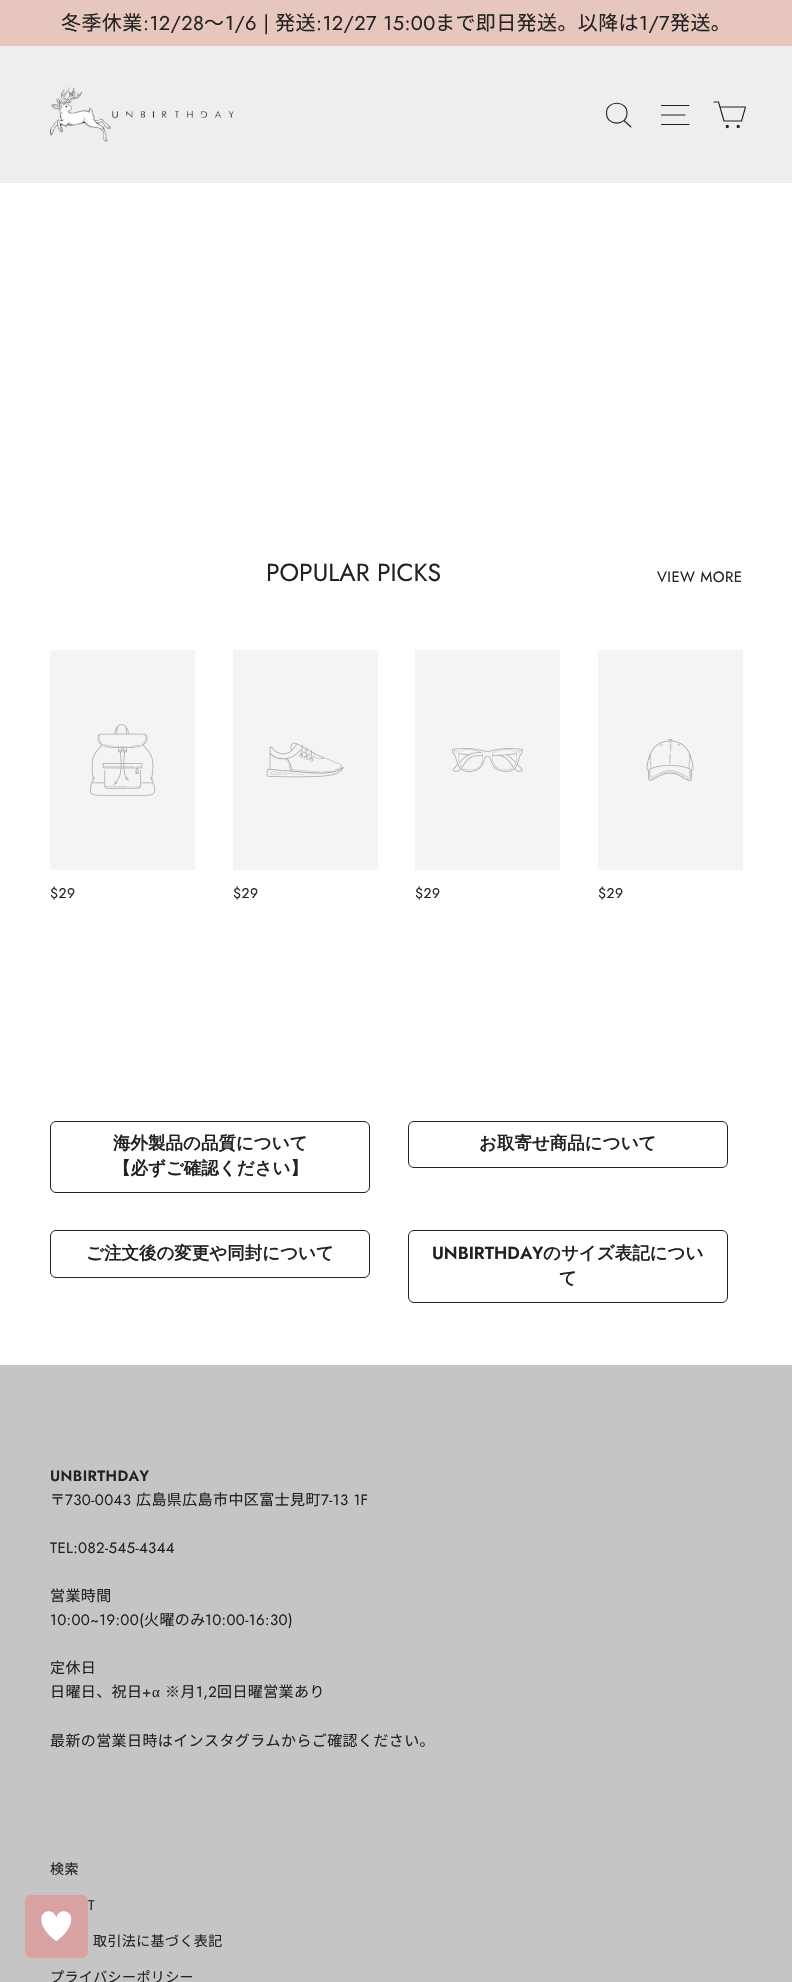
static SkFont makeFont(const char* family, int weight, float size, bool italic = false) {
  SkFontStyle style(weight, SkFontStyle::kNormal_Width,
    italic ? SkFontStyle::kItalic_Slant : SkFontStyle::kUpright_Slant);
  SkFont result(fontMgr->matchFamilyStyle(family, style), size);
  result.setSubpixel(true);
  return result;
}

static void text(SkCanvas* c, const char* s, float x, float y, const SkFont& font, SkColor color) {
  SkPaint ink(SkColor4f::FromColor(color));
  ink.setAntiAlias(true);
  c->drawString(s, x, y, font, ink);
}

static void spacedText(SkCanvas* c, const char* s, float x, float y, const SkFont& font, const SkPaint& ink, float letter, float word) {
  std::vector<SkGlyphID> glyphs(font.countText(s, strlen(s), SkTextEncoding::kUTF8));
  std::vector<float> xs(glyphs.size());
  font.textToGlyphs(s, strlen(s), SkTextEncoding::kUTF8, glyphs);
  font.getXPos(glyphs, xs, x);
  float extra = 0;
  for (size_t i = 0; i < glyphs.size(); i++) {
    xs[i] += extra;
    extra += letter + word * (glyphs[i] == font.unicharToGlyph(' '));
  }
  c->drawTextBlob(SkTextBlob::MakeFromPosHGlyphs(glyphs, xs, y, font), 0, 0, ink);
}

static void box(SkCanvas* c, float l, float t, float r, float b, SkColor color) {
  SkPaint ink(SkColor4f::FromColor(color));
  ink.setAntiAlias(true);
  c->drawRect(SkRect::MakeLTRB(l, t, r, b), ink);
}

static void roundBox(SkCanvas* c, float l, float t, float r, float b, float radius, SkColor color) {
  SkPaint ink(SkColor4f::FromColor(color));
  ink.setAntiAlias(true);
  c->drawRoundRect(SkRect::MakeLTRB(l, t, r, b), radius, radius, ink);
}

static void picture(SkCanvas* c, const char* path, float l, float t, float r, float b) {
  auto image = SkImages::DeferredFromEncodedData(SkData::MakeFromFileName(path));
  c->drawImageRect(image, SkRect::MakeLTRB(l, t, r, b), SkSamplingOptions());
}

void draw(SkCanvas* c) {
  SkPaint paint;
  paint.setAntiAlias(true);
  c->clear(0xffffffff);
  box(c, 0, 0, 792, 46, 0xffe6c6bd);
  SkFont face1 = makeFont("Noto Sans JP", 400, 20);
  paint.setColor(0xff222222);
  spacedText(c, "冬季休業", 61, 30, face1, paint, 0.4f, 0);
  SkFont face2 = makeFont("Jost", 400, 20);
  spacedText(c, ":12/28", 143, 30, face2, paint, 0.4f, 0);
  spacedText(c, "～", 204, 30, face1, paint, 0.4f, 0);
  spacedText(c, "1/6 |", 225, 30, face2, paint, 0.4f, 0);
  spacedText(c, "発送", 275, 30, face1, paint, 0.4f, 0);
  spacedText(c, ":12/27 15:00", 316, 30, face2, paint, 0.4f, 0);
  spacedText(c, "まで即日発送。以降は", 435, 30, face1, paint, 0.4f, 0);
  spacedText(c, "1/7", 639, 30, face2, paint, 0.4f, 0);
  spacedText(c, "発送。", 670, 30, face1, paint, 0.4f, 0);
  box(c, 0, 46, 792, 183, 0xffeeeeee);
  picture(c, "img_01.png", 50, 87, 234, 142);
  paint.setStyle(SkPaint::kStroke_Style);
  paint.setStrokeWidth(1.1f);
  paint.setStrokeCap(SkPaint::kRound_Cap);
  paint.setStrokeJoin(SkPaint::kRound_Join);
  c->drawPath(SkPathBuilder().moveTo(627, 113).cubicTo(627, 126.5f, 606.5f, 126.5f, 606.5f, 113).cubicTo(606.5f, 100, 627, 100, 627, 113).close().moveTo(631, 127).lineTo(624, 120.5f).detach(), paint);
  c->drawPath(SkPathBuilder().moveTo(661.5f, 105.5f).lineTo(689, 105.5f).moveTo(661.5f, 115).lineTo(685, 115).moveTo(661.5f, 124.5f).lineTo(689, 124.5f).detach(), paint);
  c->drawPath(SkPathBuilder().moveTo(720, 107).lineTo(745.5f, 107).lineTo(741.5f, 121).lineTo(724, 121).lineTo(718.5f, 102).lineTo(714, 102).detach(), paint);
  paint.setStyle(SkPaint::kFill_Style);
  c->drawCircle(727.3f, 126.5f, 1.1f, paint);
  paint.setStyle(SkPaint::kStroke_Style);
  paint.setStrokeCap(SkPaint::kButt_Cap);
  paint.setStrokeJoin(SkPaint::kMiter_Join);
  c->drawCircle(727.3f, 126.5f, 1.1f, paint);
  paint.setStyle(SkPaint::kFill_Style);
  c->drawCircle(738.2f, 126.5f, 1.1f, paint);
  paint.setStyle(SkPaint::kStroke_Style);
  c->drawCircle(738.2f, 126.5f, 1.1f, paint);
  SkFont face3 = makeFont("Jost", 400, 24.75f);
  text(c, "POPULAR PICKS", 266, 581, face3, 0xff222222);
  SkFont face4 = makeFont("Jost", 400, 15);
  paint.setStyle(SkPaint::kFill_Style);
  spacedText(c, "VIEW MORE", 657, 582, face4, paint, 0.4f, 0);
  box(c, 50, 650, 195, 870, 0xfff4f4f4);
  picture(c, "img_02.png", 89, 724, 156, 796);
  SkFont face5 = makeFont("Jost", 400, 14);
  spacedText(c, "$29", 50, 898, face5, paint, 0.4f, 0);
  box(c, 233, 650, 378, 870, 0xfff4f4f4);
  picture(c, "img_03.png", 266, 742, 344, 778);
  spacedText(c, "$29", 233, 898, face5, paint, 0.4f, 0);
  box(c, 415, 650, 560, 870, 0xfff4f4f4);
  picture(c, "img_04.png", 452, 748, 524, 772);
  spacedText(c, "$29", 415, 898, face5, paint, 0.4f, 0);
  box(c, 598, 650, 743, 870, 0xfff4f4f4);
  picture(c, "img_05.png", 646, 739, 694, 781);
  spacedText(c, "$29", 598, 898, face5, paint, 0.4f, 0);
  paint.setStyle(SkPaint::kStroke_Style);
  paint.setStrokeWidth(1);
  c->drawRoundRect(SkRect::MakeLTRB(50.5f, 1121.5f, 369.5f, 1192.5f), 5.5f, 5.5f, paint);
  SkFont face6 = makeFont("WenQuanYi Zen Hei", 700, 17.5f);
  text(c, "海外製品の品質について", 113, 1149, face6, 0xff222222);
  text(c, "【必ずご確認ください】", 113, 1174, face6, 0xff222222);
  c->drawRoundRect(SkRect::MakeLTRB(408.5f, 1121.5f, 727.5f, 1167.5f), 5.5f, 5.5f, paint);
  text(c, "お取寄せ商品について", 479, 1149, face6, 0xff222222);
  c->drawRoundRect(SkRect::MakeLTRB(50.5f, 1230.5f, 369.5f, 1277.5f), 5.5f, 5.5f, paint);
  text(c, "ご注文後の変更や同封について", 86, 1259, face6, 0xff222222);
  c->drawRoundRect(SkRect::MakeLTRB(408.5f, 1230.5f, 727.5f, 1302.5f), 5.5f, 5.5f, paint);
  SkFont face7 = makeFont("Jost", 600, 17.5f);
  text(c, "UNBIRTHDAY", 432, 1259, face7, 0xff222222);
  text(c, "のサイズ表記につい", 543, 1259, face6, 0xff222222);
  text(c, "て", 559, 1284, face6, 0xff222222);
  box(c, 0, 1365, 792, 1982, 0xffc5c5c5);
  SkFont face8 = makeFont("Jost", 600, 15);
  paint.setStyle(SkPaint::kFill_Style);
  spacedText(c, "UNBIRTHDAY", 50, 1481, face8, paint, 0.4f, 0);
  SkFont face9 = makeFont("Noto Sans JP", 400, 15);
  spacedText(c, "〒", 50, 1505, face9, paint, 0.4f, 0);
  spacedText(c, "730-0043", 65, 1505, face4, paint, 0.4f, 0);
  spacedText(c, "広島県広島市中区富士見町", 136, 1505, face9, paint, 0.4f, 0);
  spacedText(c, "7-13 1F", 321, 1505, face4, paint, 0.4f, 0);
  spacedText(c, "TEL:082-545-4344", 50, 1553, face4, paint, 0.4f, 0);
  spacedText(c, "営業時間", 50, 1601, face9, paint, 0.4f, 0);
  spacedText(c, "10:00~19:00(", 50, 1625, face4, paint, 0.4f, 0);
  spacedText(c, "火曜のみ", 144, 1625, face9, paint, 0.4f, 0);
  spacedText(c, "10:00-16:30)", 205, 1625, face4, paint, 0.4f, 0);
  spacedText(c, "定休日", 50, 1673, face9, paint, 0.4f, 0);
  spacedText(c, "日曜日、祝日", 50, 1697, face9, paint, 0.4f, 0);
  spacedText(c, "+", 142, 1697, face4, paint, 0.4f, 0);
  SkFont face10 = makeFont("Liberation Serif", 400, 15);
  spacedText(c, "α", 152, 1697, face10, paint, 0.4f, 0);
  spacedText(c, "※月", 165, 1697, face9, paint, 0.4f, 0);
  spacedText(c, "1,2", 196, 1697, face4, paint, 0.4f, 0);
  spacedText(c, "回日曜営業あり", 217, 1697, face9, paint, 0.4f, 0);
  spacedText(c, "最新の営業日時はインスタグラムからご確認ください。", 50, 1746, face9, paint, 0.4f, 0);
  SkFont face11 = makeFont("Noto Sans JP", 400, 14);
  spacedText(c, "検索", 50, 1874, face11, paint, 0.4f, 0);
  spacedText(c, "T", 88, 1910, face5, paint, 0.4f, 0);
  spacedText(c, "取引法に基づく表記", 93, 1946, face11, paint, 0.4f, 0);
  spacedText(c, "プライバシーポリシー", 50, 1982, face11, paint, 0.4f, 0);
  roundBox(c, 25, 1895, 88, 1958, 6, 0xb8e19494);
  picture(c, "img_06.png", 41, 1911, 72, 1942);
}
